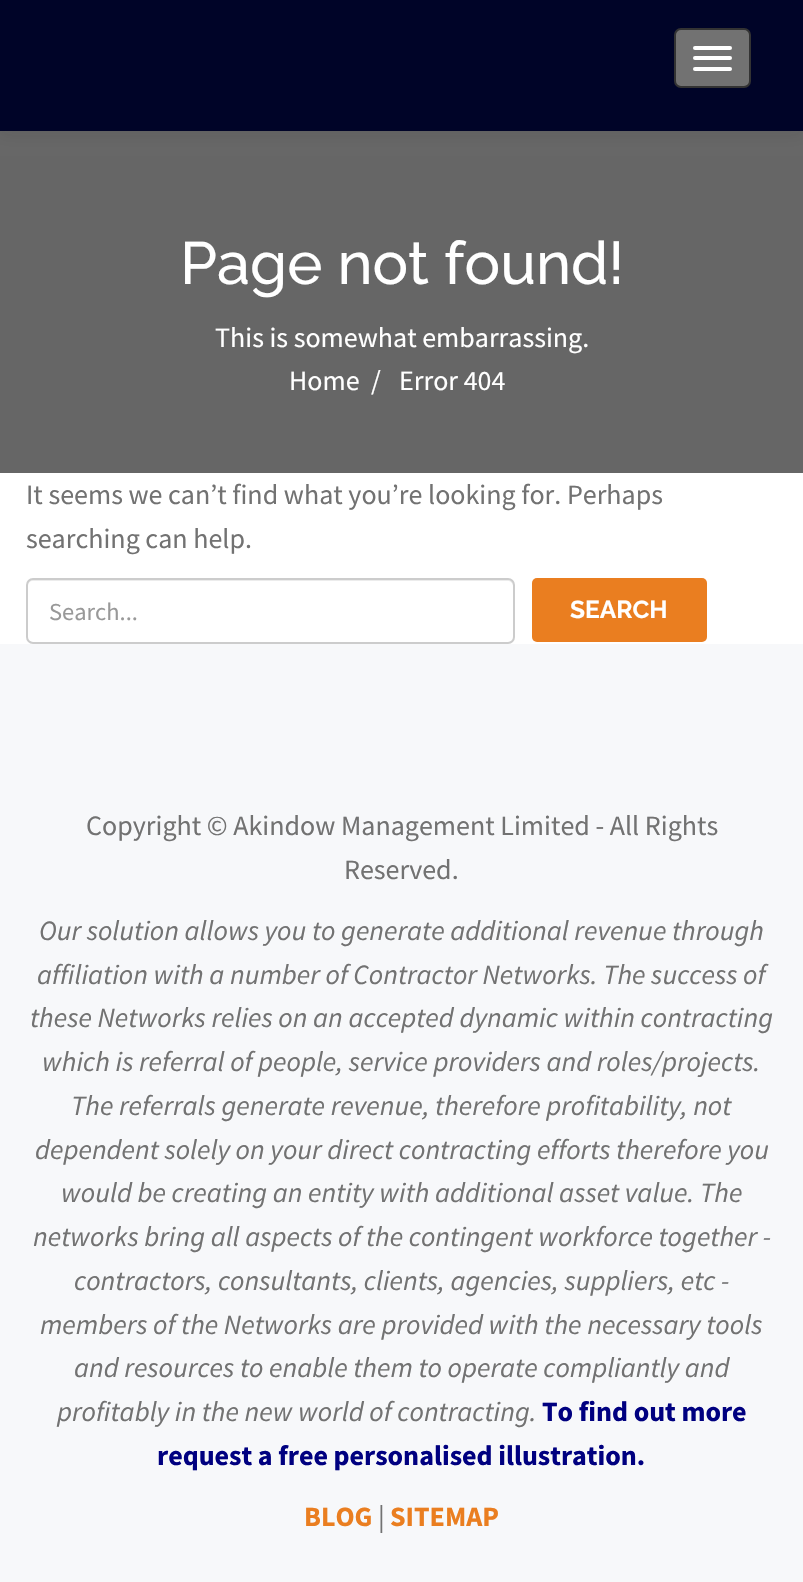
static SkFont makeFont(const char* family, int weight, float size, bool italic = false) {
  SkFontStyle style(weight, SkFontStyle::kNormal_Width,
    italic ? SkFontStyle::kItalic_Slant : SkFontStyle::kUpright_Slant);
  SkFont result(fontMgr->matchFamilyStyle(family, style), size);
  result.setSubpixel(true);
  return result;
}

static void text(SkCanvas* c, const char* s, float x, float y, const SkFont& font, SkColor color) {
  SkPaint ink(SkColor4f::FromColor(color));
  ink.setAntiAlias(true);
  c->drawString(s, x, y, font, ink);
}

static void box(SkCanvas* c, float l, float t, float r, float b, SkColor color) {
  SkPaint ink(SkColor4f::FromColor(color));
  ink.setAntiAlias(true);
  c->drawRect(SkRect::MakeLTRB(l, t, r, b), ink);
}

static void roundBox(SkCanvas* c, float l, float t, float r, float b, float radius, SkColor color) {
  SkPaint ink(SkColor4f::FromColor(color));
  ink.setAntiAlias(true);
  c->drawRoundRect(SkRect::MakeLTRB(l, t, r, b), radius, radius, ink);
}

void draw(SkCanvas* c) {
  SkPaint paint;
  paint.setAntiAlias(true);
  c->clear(0xffffffff);
  box(c, 0, 131, 803, 473, 0xff666666);
  paint.setColor(0x14141414);
  paint.setMaskFilter(SkMaskFilter::MakeBlur(kNormal_SkBlurStyle, 7));
  c->drawRect(SkRect::MakeLTRB(0, 4, 803, 135), paint);
  paint.setMaskFilter(nullptr);
  box(c, 0, 0, 803, 131, 0xff000428);
  paint.setColor(0xff727272);
  c->drawRoundRect(SkRect::MakeLTRB(675, 29, 750, 87), 6, 6, paint);
  paint.setStyle(SkPaint::kStroke_Style);
  paint.setStrokeWidth(2);
  paint.setColor(0xff333333);
  c->drawRoundRect(SkRect::MakeLTRB(675, 29, 750, 87), 6, 6, paint);
  roundBox(c, 693, 46, 732, 50, 2, 0xffffffff);
  roundBox(c, 693, 56, 732, 60, 2, 0xffffffff);
  roundBox(c, 693, 67, 732, 71, 2, 0xffffffff);
  SkFont face1 = makeFont("Raleway", 500, 59.5f);
  text(c, "Page not found!", 180, 284, face1, 0xffffffff);
  SkFont face2 = makeFont("Source Sans Pro", 400, 28);
  text(c, "This is somewhat embarrassing.", 215, 347, face2, 0xffffffff);
  text(c, "Home", 289, 390, face2, 0xffffffff);
  text(c, "/", 371, 390, face2, 0xffffffff);
  text(c, "Error 404", 399, 390, face2, 0xffffffff);
  text(c, "It seems we can’t find what you’re looking for. Perhaps", 26, 504, face2, 0xff727272);
  text(c, "searching can help.", 26, 548, face2, 0xff727272);
  paint.setStyle(SkPaint::kFill_Style);
  paint.setColor(0xffececec);
  c->drawPath(SkPathBuilder().moveTo(33, 581).lineTo(508, 581).cubicTo(510, 581, 513, 583, 513, 586).lineTo(513, 584).cubicTo(513, 581, 511, 579, 508, 579).lineTo(33, 579).cubicTo(30, 579, 28, 581, 28, 584).lineTo(28, 586).cubicTo(28, 583, 30, 581, 33, 581).close().detach(), paint);
  paint.setStyle(SkPaint::kStroke_Style);
  paint.setColor(0xffcccccc);
  c->drawRoundRect(SkRect::MakeLTRB(27, 579, 514, 643), 6, 6, paint);
  SkFont face3 = makeFont("Source Sans Pro", 400, 24.5f);
  text(c, "Search...", 49, 620, face3, 0xff999999);
  roundBox(c, 532, 578, 707, 642, 5, 0xffea7e20);
  SkFont face4 = makeFont("Raleway", 700, 24.5f);
  text(c, "SEARCH", 570, 618, face4, 0xffffffff);
  box(c, 0, 644, 803, 1582, 0xfff7f8fa);
  text(c, "Copyright © Akindow Management Limited - All Rights", 86, 835, face2, 0xff727272);
  text(c, "Reserved.", 344, 879, face2, 0xff727272);
  SkFont face5 = makeFont("Source Sans Pro", 400, 28, true);
  text(c, "Our solution allows you to generate additional revenue through", 39, 940, face5, 0xff727272);
  text(c, "affiliation with a number of Contractor Networks. The success of", 37, 984, face5, 0xff727272);
  text(c, "these Networks relies on an accepted dynamic within contracting", 30, 1027, face5, 0xff727272);
  text(c, "which is referral of people, service providers and roles/projects.", 42, 1071, face5, 0xff727272);
  text(c, "The referrals generate revenue, therefore profitability, not", 71, 1115, face5, 0xff727272);
  text(c, "dependent solely on your direct contracting efforts therefore you", 35, 1159, face5, 0xff727272);
  text(c, "would be creating an entity with additional asset value. The", 61, 1202, face5, 0xff727272);
  text(c, "networks bring all aspects of the contingent workforce together -", 33, 1246, face5, 0xff727272);
  text(c, "contractors, consultants, clients, agencies, suppliers, etc -", 74, 1290, face5, 0xff727272);
  text(c, "members of the Networks are provided with the necessary tools", 40, 1334, face5, 0xff727272);
  text(c, "and resources to enable them to operate compliantly and", 74, 1377, face5, 0xff727272);
  text(c, "profitably in the new world of contracting.", 57, 1421, face5, 0xff727272);
  SkFont face6 = makeFont("Source Sans Pro", 700, 28);
  text(c, "To find out more", 542, 1421, face6, 0xff000080);
  text(c, "request a free personalised illustration.", 157, 1465, face6, 0xff000080);
  text(c, "BLOG", 304, 1526, face6, 0xffea7e20);
  text(c, "|", 378, 1526, face2, 0xff727272);
  text(c, "SITEMAP", 390, 1526, face6, 0xffea7e20);
}
